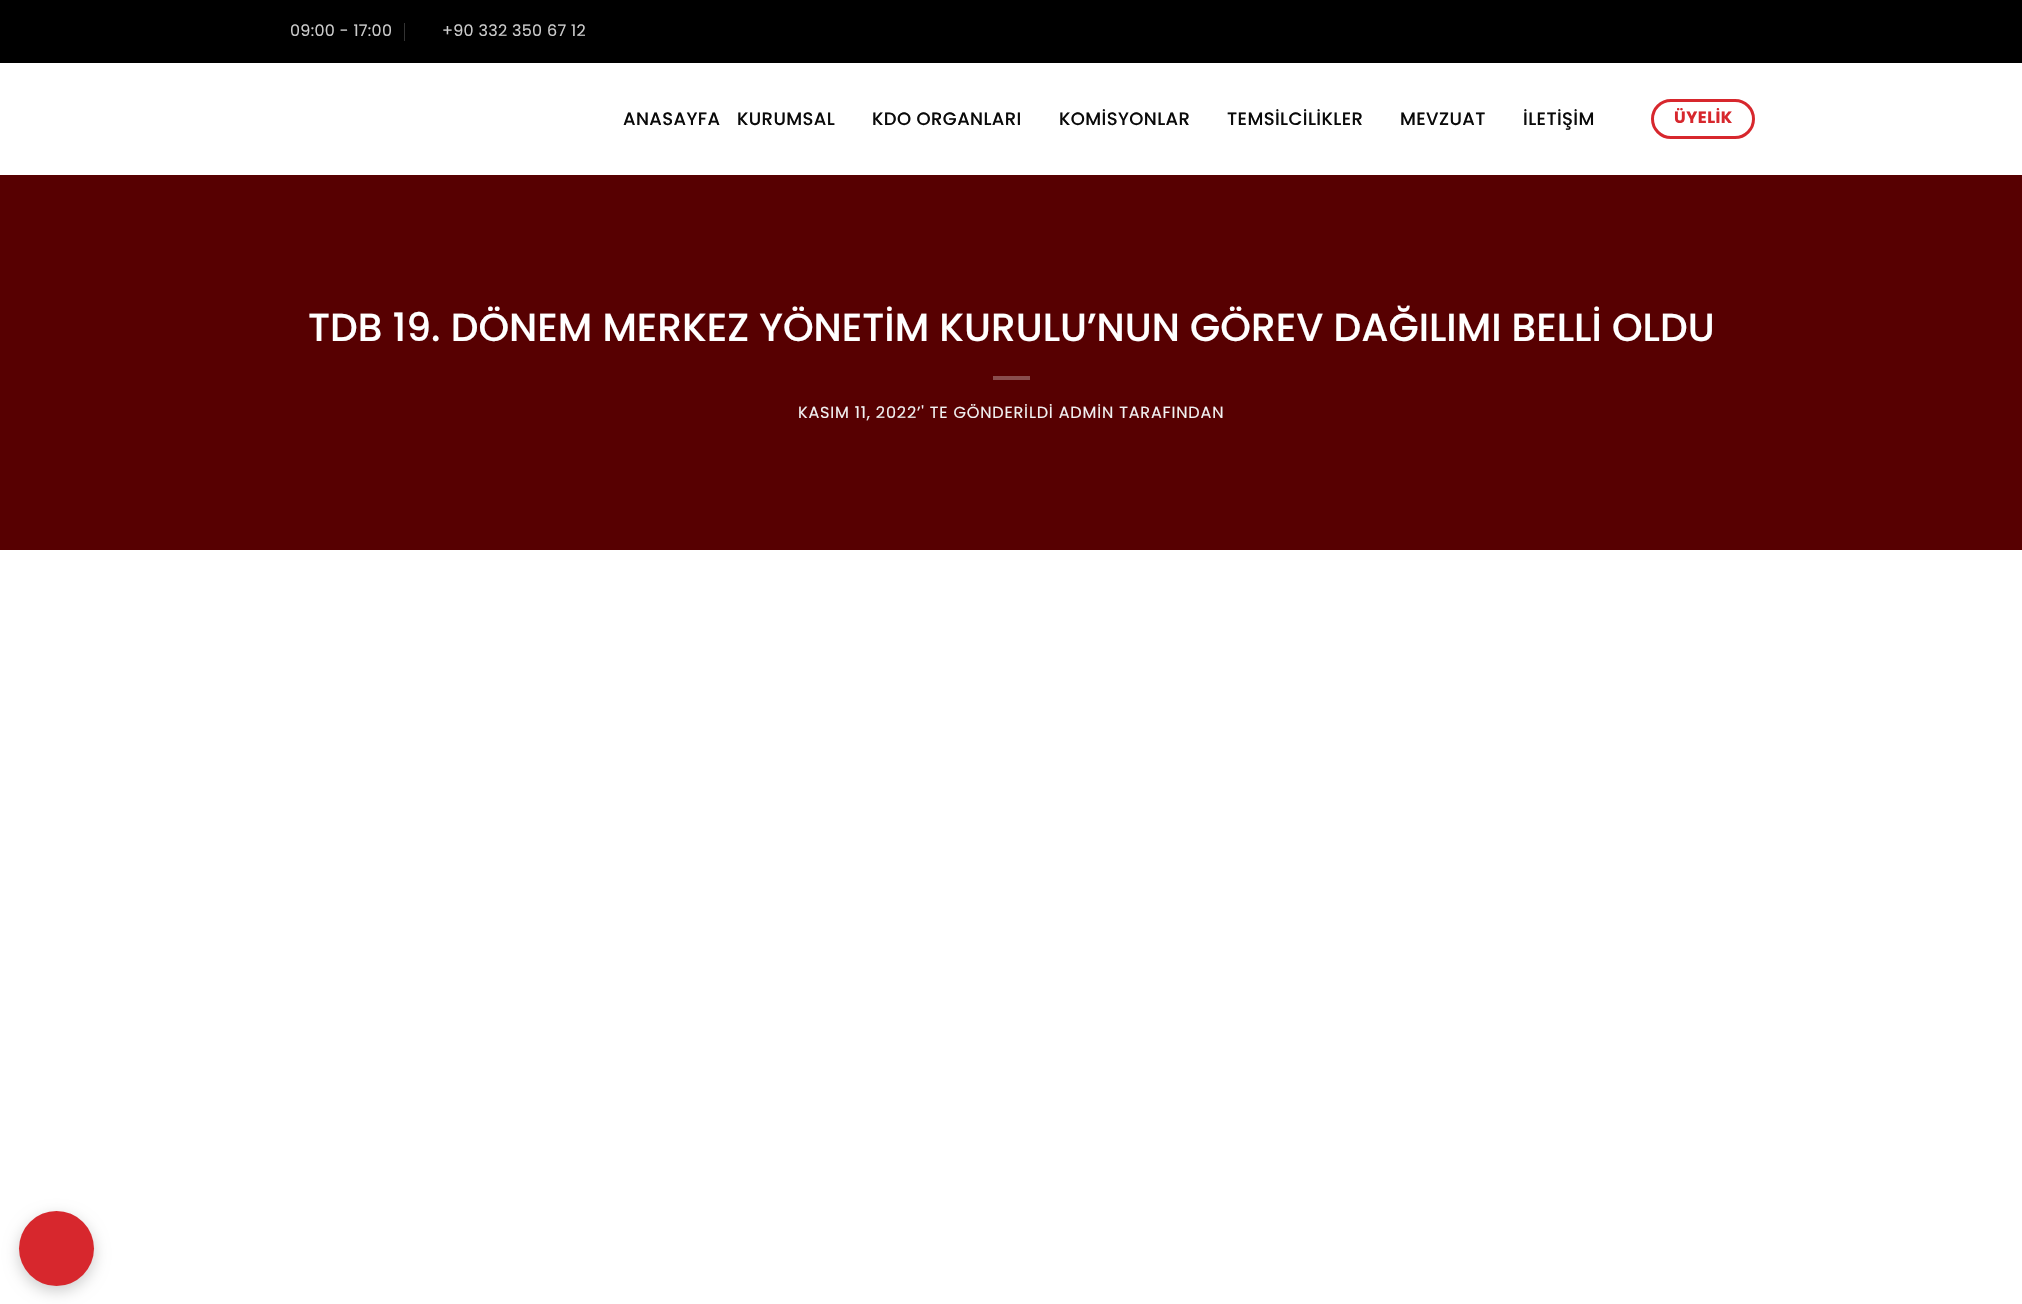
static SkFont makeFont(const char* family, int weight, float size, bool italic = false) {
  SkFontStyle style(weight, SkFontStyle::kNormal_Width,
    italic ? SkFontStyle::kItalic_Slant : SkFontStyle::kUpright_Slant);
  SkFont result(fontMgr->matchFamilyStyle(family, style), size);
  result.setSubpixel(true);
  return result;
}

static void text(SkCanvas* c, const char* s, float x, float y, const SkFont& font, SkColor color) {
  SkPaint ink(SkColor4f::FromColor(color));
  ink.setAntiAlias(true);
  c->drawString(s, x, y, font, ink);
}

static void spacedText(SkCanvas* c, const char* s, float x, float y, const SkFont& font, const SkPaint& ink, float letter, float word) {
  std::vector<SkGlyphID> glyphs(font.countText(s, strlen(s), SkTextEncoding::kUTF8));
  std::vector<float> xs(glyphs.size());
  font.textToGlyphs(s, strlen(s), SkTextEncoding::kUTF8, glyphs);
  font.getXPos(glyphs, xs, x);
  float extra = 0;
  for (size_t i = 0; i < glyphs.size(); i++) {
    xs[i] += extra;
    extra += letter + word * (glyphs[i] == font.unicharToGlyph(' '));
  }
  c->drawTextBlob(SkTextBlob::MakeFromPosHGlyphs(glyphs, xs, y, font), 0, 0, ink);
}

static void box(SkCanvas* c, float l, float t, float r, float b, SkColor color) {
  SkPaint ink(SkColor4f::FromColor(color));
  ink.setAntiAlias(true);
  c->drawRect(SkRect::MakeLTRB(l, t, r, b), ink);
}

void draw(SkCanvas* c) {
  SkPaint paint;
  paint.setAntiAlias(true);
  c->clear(0xffffffff);
  box(c, 0, 0, 2022, 63, 0xff000000);
  SkFont face1 = makeFont("Poppins", 400, 16);
  paint.setColor(0xffcccccc);
  spacedText(c, "09:00 - 17:00", 290, 36, face1, paint, 0.3f, 0);
  box(c, 404, 23, 405, 41, 0xff333333);
  spacedText(c, "+90 332 350 67 12", 442, 36, face1, paint, 0.3f, 0);
  SkFont face2 = makeFont("Poppins", 500, 18);
  paint.setColor(0xff0a0a0a);
  spacedText(c, "ANASAYFA", 623, 125, face2, paint, 0.4f, 0);
  spacedText(c, "KURUMSAL", 737, 125, face2, paint, 0.4f, 0);
  spacedText(c, "KDO ORGANLARI", 872, 125, face2, paint, 0.4f, 0);
  spacedText(c, "KOMİSYONLAR", 1059, 125, face2, paint, 0.4f, 0);
  spacedText(c, "TEMSİLCİLİKLER", 1227, 125, face2, paint, 0.4f, 0);
  spacedText(c, "MEVZUAT", 1400, 125, face2, paint, 0.4f, 0);
  spacedText(c, "İLETİŞİM", 1523, 125, face2, paint, 0.4f, 0);
  paint.setStyle(SkPaint::kStroke_Style);
  paint.setStrokeWidth(3);
  paint.setColor(0xffd7272d);
  c->drawRoundRect(SkRect::MakeLTRB(1652.5f, 100.5f, 1753.5f, 137.5f), 18.5f, 18.5f, paint);
  SkFont face3 = makeFont("Poppins", 700, 16.5f);
  paint.setStyle(SkPaint::kFill_Style);
  spacedText(c, "ÜYELİK", 1674, 123, face3, paint, 0.5f, 0);
  box(c, 0, 175, 2022, 550, 0xff570001);
  SkFont face4 = makeFont("Poppins", 500, 39.1f);
  text(c, "TDB 19. DÖNEM MERKEZ YÖNETİM KURULU’NUN GÖREV DAĞILIMI BELLİ OLDU", 308, 341, face4, 0xffffffff);
  box(c, 993, 376, 1030, 380, 0xff894d4d);
  SkFont face5 = makeFont("Poppins", 400, 16.1f);
  paint.setColor(0xfff1f1f1);
  spacedText(c, "KASIM 11, 2022’' TE GÖNDERİLDİ ADMİN TARAFINDAN", 798, 418, face5, paint, 0.8f, 0);
  paint.setColor(0x33000000);
  paint.setMaskFilter(SkMaskFilter::MakeBlur(kNormal_SkBlurStyle, 7.5f));
  c->drawRoundRect(SkRect::MakeLTRB(19, 1216, 94, 1291), 37.5f, 37.5f, paint);
  paint.setMaskFilter(nullptr);
  paint.setColor(0xffd7272d);
  c->drawCircle(56.5f, 1248.5f, 37.5f, paint);
}
